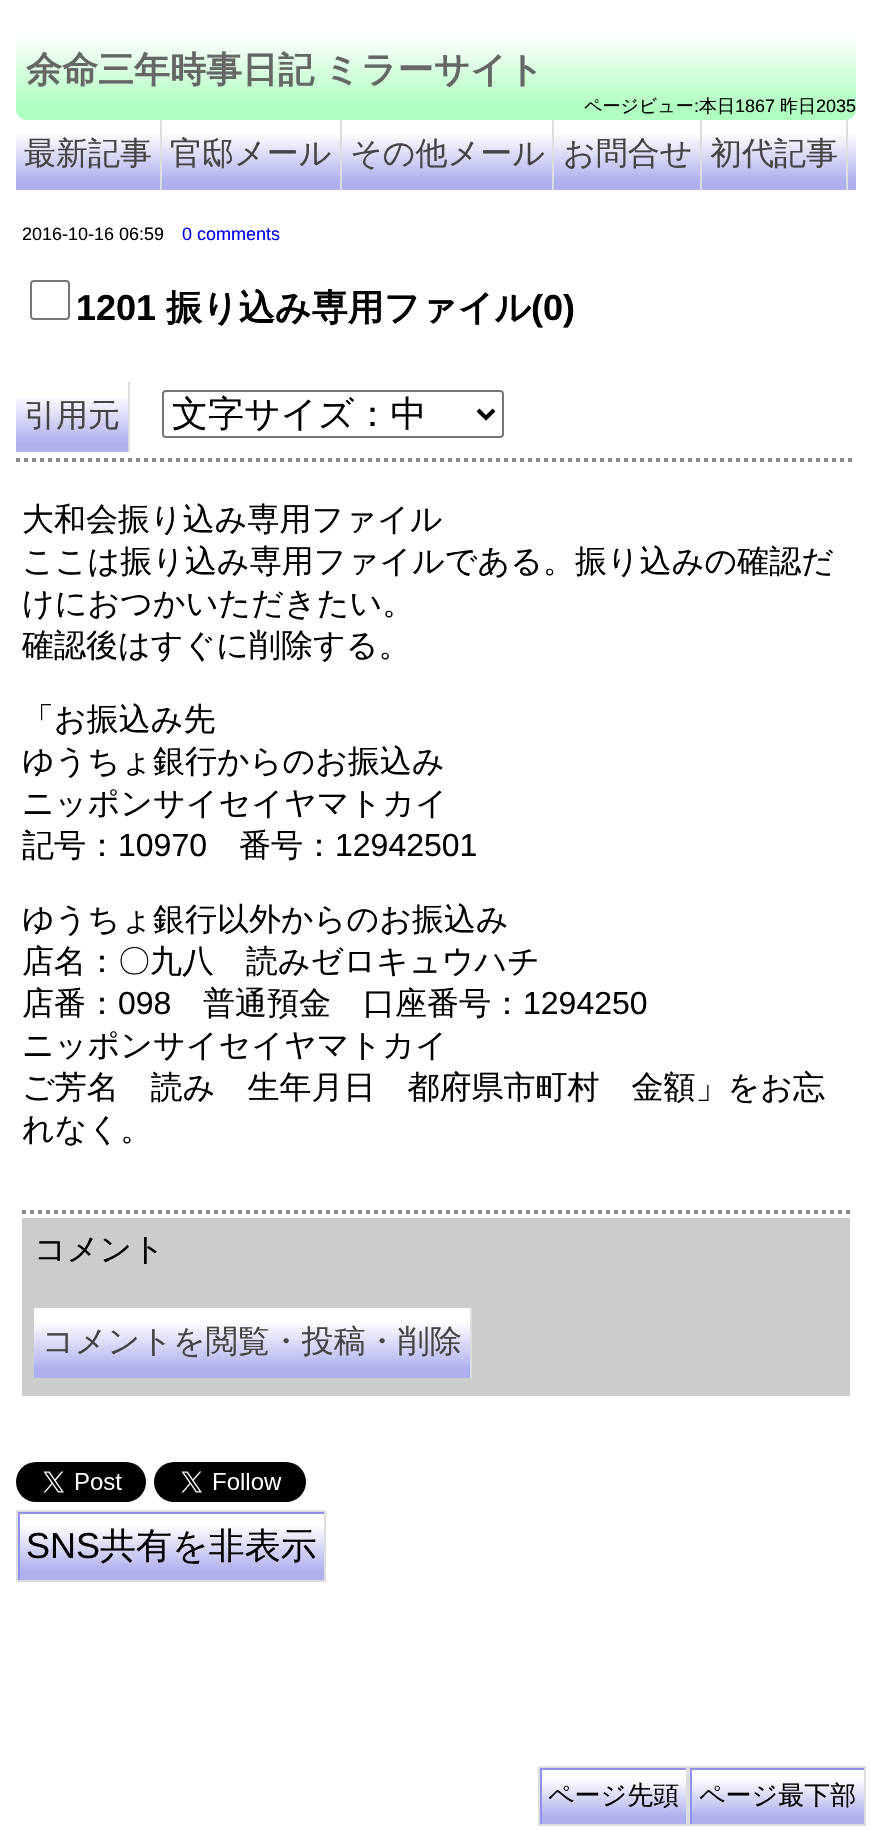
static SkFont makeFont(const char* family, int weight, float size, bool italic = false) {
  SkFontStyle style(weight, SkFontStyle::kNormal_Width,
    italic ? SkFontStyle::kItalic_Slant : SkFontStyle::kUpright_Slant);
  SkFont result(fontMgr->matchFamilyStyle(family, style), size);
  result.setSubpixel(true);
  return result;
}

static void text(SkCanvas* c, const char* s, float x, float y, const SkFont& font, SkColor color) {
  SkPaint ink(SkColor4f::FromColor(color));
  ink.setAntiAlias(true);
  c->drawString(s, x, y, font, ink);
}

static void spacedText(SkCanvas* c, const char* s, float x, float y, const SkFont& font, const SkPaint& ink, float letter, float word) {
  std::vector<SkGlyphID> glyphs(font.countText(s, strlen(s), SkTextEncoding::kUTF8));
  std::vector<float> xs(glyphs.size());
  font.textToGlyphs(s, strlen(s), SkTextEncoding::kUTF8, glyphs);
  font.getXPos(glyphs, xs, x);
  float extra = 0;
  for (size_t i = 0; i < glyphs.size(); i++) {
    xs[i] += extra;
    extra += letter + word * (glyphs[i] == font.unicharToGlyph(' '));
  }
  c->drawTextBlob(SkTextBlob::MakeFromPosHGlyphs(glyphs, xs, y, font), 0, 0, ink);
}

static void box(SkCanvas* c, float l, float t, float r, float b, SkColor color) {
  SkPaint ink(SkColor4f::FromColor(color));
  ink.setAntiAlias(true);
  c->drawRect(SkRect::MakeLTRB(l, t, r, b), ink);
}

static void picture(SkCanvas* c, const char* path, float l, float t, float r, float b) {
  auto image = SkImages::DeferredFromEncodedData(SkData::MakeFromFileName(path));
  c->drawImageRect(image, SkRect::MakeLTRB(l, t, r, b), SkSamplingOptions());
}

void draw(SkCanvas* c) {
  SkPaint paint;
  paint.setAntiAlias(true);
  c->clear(0xffffffff);
  {
    const SkColor colors[] = {0xffffffff, 0xffb0ffc0};
    const float stops[] = {0.18f, 0.87f};
    const SkPoint ends[] = {{16, 16}, {16, 120}};
    paint.setShader(SkGradientShader::MakeLinear(ends, colors, stops, 2, SkTileMode::kClamp));
    paint.setAlpha(255);
  }
  c->drawRoundRect(SkRect::MakeLTRB(16, 16, 856, 120), 10, 10, paint);
  SkFont face1 = makeFont("WenQuanYi Zen Hei", 700, 36);
  paint.setShader(nullptr);
  paint.setColor(0xff666666);
  spacedText(c, "余命三年時事日記 ミラーサイト", 26, 82, face1, paint, 0, -1);
  SkFont face2 = makeFont("WenQuanYi Zen Hei", 500, 18);
  text(c, "ページビュー", 584, 112, face2, 0xff000000);
  SkFont face3 = makeFont("Liberation Sans", 400, 18);
  text(c, ":", 694, 112, face3, 0xff000000);
  text(c, "本日", 699, 112, face2, 0xff000000);
  text(c, "1867", 735, 112, face3, 0xff000000);
  text(c, "昨日", 780, 112, face2, 0xff000000);
  text(c, "2035", 816, 112, face3, 0xff000000);
  {
    const SkColor colors[] = {0xffffffff, 0xffb0b0ee};
    const float stops[] = {0.18f, 0.87f};
    const SkPoint ends[] = {{16, 120}, {16, 190}};
    paint.setShader(SkGradientShader::MakeLinear(ends, colors, stops, 2, SkTileMode::kClamp));
    paint.setAlpha(255);
  }
  c->drawRect(SkRect::MakeLTRB(16, 134, 160, 190), paint);
  box(c, 160, 120, 162, 190, 0xffdddddd);
  SkFont face4 = makeFont("WenQuanYi Zen Hei", 500, 32);
  text(c, "最新記事", 24, 164, face4, 0xff444444);
  {
    const SkColor colors[] = {0xffffffff, 0xffb0b0ee};
    const float stops[] = {0.18f, 0.87f};
    const SkPoint ends[] = {{162, 120}, {162, 190}};
    paint.setShader(SkGradientShader::MakeLinear(ends, colors, stops, 2, SkTileMode::kClamp));
    paint.setAlpha(255);
  }
  c->drawRect(SkRect::MakeLTRB(162, 134, 340, 190), paint);
  box(c, 340, 120, 342, 190, 0xffdddddd);
  text(c, "官邸メール", 170, 164, face4, 0xff444444);
  {
    const SkColor colors[] = {0xffffffff, 0xffb0b0ee};
    const float stops[] = {0.18f, 0.87f};
    const SkPoint ends[] = {{342, 120}, {342, 190}};
    paint.setShader(SkGradientShader::MakeLinear(ends, colors, stops, 2, SkTileMode::kClamp));
    paint.setAlpha(255);
  }
  c->drawRect(SkRect::MakeLTRB(342, 134, 552, 190), paint);
  box(c, 552, 120, 554, 190, 0xffdddddd);
  text(c, "その他メール", 350, 164, face4, 0xff444444);
  {
    const SkColor colors[] = {0xffffffff, 0xffb0b0ee};
    const float stops[] = {0.18f, 0.87f};
    const SkPoint ends[] = {{554, 120}, {554, 190}};
    paint.setShader(SkGradientShader::MakeLinear(ends, colors, stops, 2, SkTileMode::kClamp));
    paint.setAlpha(255);
  }
  c->drawRect(SkRect::MakeLTRB(554, 134, 700, 190), paint);
  box(c, 700, 120, 702, 190, 0xffdddddd);
  text(c, "お問合せ", 563, 164, face4, 0xff444444);
  {
    const SkColor colors[] = {0xffffffff, 0xffb0b0ee};
    const float stops[] = {0.18f, 0.87f};
    const SkPoint ends[] = {{702, 120}, {702, 190}};
    paint.setShader(SkGradientShader::MakeLinear(ends, colors, stops, 2, SkTileMode::kClamp));
    paint.setAlpha(255);
  }
  c->drawRect(SkRect::MakeLTRB(702, 134, 846, 190), paint);
  box(c, 846, 120, 848, 190, 0xffdddddd);
  text(c, "初代記事", 710, 164, face4, 0xff444444);
  {
    const SkColor colors[] = {0xffffffff, 0xffb0b0ee};
    const float stops[] = {0.18f, 0.87f};
    const SkPoint ends[] = {{848, 120}, {848, 190}};
    paint.setShader(SkGradientShader::MakeLinear(ends, colors, stops, 2, SkTileMode::kClamp));
    paint.setAlpha(255);
  }
  c->drawRect(SkRect::MakeLTRB(848, 134, 856, 190), paint);
  text(c, "2016-10-16 06:59", 22, 240, face3, 0xff000000);
  text(c, "0 comments", 182, 240, face3, 0xff0000ee);
  paint.setStyle(SkPaint::kStroke_Style);
  paint.setStrokeWidth(2);
  paint.setShader(nullptr);
  paint.setColor(0xff767676);
  c->drawRoundRect(SkRect::MakeLTRB(31, 281, 69, 319), 3, 3, paint);
  SkFont face5 = makeFont("Liberation Sans", 700, 36);
  text(c, "1201", 76, 320, face5, 0xff000000);
  text(c, "振り込み専用ファイル", 166, 320, face1, 0xff000000);
  text(c, "(0)", 531, 320, face5, 0xff000000);
  paint.setStyle(SkPaint::kFill_Style);
  {
    const SkColor colors[] = {0xffffffff, 0xffb0b0ee};
    const float stops[] = {0.18f, 0.87f};
    const SkPoint ends[] = {{16, 382}, {16, 452}};
    paint.setShader(SkGradientShader::MakeLinear(ends, colors, stops, 2, SkTileMode::kClamp));
    paint.setAlpha(255);
  }
  c->drawRect(SkRect::MakeLTRB(16, 396, 128, 452), paint);
  box(c, 128, 382, 130, 452, 0xffdddddd);
  text(c, "引用元", 24, 426, face4, 0xff444444);
  paint.setStyle(SkPaint::kStroke_Style);
  paint.setShader(nullptr);
  paint.setColor(0xff767676);
  c->drawRoundRect(SkRect::MakeLTRB(163, 391, 503, 437), 3, 3, paint);
  paint.setStrokeWidth(4);
  paint.setColor(0xff000000);
  c->drawPath(SkPathBuilder().moveTo(478, 410).lineTo(486, 418).lineTo(494, 410).detach(), paint);
  SkFont face6 = makeFont("WenQuanYi Zen Hei", 500, 36);
  text(c, "文字サイズ：中", 172, 426, face6, 0xff000000);
  paint.setColor(0xff888888);
  paint.setPathEffect(SkDashPathEffect::Make({{4, 4}}, 0));
  c->drawPath(SkPathBuilder().moveTo(16, 460).lineTo(856, 460).detach(), paint);
  paint.setPathEffect(nullptr);
  text(c, "大和会振り込み専用ファイル", 22, 530, face4, 0xff000000);
  text(c, "ここは振り込み専用ファイルである。振り込みの確認だ", 22, 572, face4, 0xff000000);
  text(c, "けにおつかいただきたい。", 22, 614, face4, 0xff000000);
  text(c, "確認後はすぐに削除する。", 22, 656, face4, 0xff000000);
  text(c, "「お振込み先", 22, 730, face4, 0xff000000);
  text(c, "ゆうちょ銀行からのお振込み", 22, 772, face4, 0xff000000);
  text(c, "ニッポンサイセイヤマトカイ", 22, 814, face4, 0xff000000);
  text(c, "記号：", 22, 856, face4, 0xff000000);
  SkFont face7 = makeFont("Liberation Sans", 400, 32);
  text(c, "10970", 118, 856, face7, 0xff000000);
  text(c, "番号：", 239, 856, face4, 0xff000000);
  text(c, "12942501", 335, 856, face7, 0xff000000);
  text(c, "ゆうちょ銀行以外からのお振込み", 22, 930, face4, 0xff000000);
  text(c, "店名：〇九八　読みゼロキュウハチ", 22, 972, face4, 0xff000000);
  text(c, "店番：", 22, 1014, face4, 0xff000000);
  text(c, "098", 118, 1014, face7, 0xff000000);
  text(c, "普通預金　口座番号：", 203, 1014, face4, 0xff000000);
  text(c, "1294250", 523, 1014, face7, 0xff000000);
  text(c, "ニッポンサイセイヤマトカイ", 22, 1056, face4, 0xff000000);
  text(c, "ご芳名　読み　生年月日　都府県市町村　金額」をお忘", 22, 1098, face4, 0xff000000);
  text(c, "れなく。", 22, 1140, face4, 0xff000000);
  paint.setPathEffect(SkDashPathEffect::Make({{4, 4}}, 0));
  c->drawPath(SkPathBuilder().moveTo(22, 1212).lineTo(850, 1212).detach(), paint);
  paint.setPathEffect(nullptr);
  box(c, 22, 1218, 850, 1396, 0xffcccccc);
  text(c, "コメント", 34, 1260, face4, 0xff000000);
  paint.setStyle(SkPaint::kFill_Style);
  {
    const SkColor colors[] = {0xffffffff, 0xffb0b0ee};
    const float stops[] = {0.18f, 0.87f};
    const SkPoint ends[] = {{34, 1308}, {34, 1378}};
    paint.setShader(SkGradientShader::MakeLinear(ends, colors, stops, 2, SkTileMode::kClamp));
    paint.setAlpha(255);
  }
  c->drawRect(SkRect::MakeLTRB(34, 1308, 470, 1378), paint);
  box(c, 470, 1308, 472, 1378, 0xffdddddd);
  text(c, "コメントを閲覧・投稿・削除", 42, 1352, face4, 0xff444444);
  picture(c, "img_01.png", 16, 1462, 146, 1502);
  picture(c, "img_02.png", 154, 1462, 306, 1502);
  {
    const SkColor colors[] = {0xffffffff, 0xffb0b0ee};
    const float stops[] = {0.18f, 0.87f};
    const SkPoint ends[] = {{18, 1512}, {18, 1580}};
    paint.setShader(SkGradientShader::MakeLinear(ends, colors, stops, 2, SkTileMode::kClamp));
    paint.setAlpha(255);
  }
  c->drawRect(SkRect::MakeLTRB(20, 1526, 324, 1580), paint);
  c->save();
  c->clipRect(SkRect::MakeLTRB(18, 1512, 324, 1580));
  paint.setShader(nullptr);
  paint.setColor(0xff9090ee);
  c->drawPath(SkPathBuilder(SkPathFillType::kEvenOdd).moveTo(-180, 1314).lineTo(522, 1314).lineTo(522, 1778).lineTo(-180, 1778).close().moveTo(20, 1514).lineTo(326, 1514).lineTo(326, 1582).lineTo(20, 1582).close().detach(), paint);
  c->restore();
  paint.setStyle(SkPaint::kStroke_Style);
  paint.setStrokeWidth(2);
  paint.setColor(0xffdddddd);
  c->drawRect(SkRect::MakeLTRB(17, 1511, 325, 1581), paint);
  SkFont face8 = makeFont("Liberation Sans", 400, 36);
  text(c, "SNS", 26, 1558, face8, 0xff000000);
  text(c, "共有を非表示", 100, 1558, face6, 0xff000000);
  paint.setStyle(SkPaint::kFill_Style);
  {
    const SkColor colors[] = {0xffffffff, 0xffb0b0ee};
    const float stops[] = {0.18f, 0.87f};
    const SkPoint ends[] = {{540, 1768}, {540, 1824}};
    paint.setShader(SkGradientShader::MakeLinear(ends, colors, stops, 2, SkTileMode::kClamp));
    paint.setAlpha(255);
  }
  c->drawRect(SkRect::MakeLTRB(542, 1779, 686, 1824), paint);
  c->save();
  c->clipRect(SkRect::MakeLTRB(540, 1768, 686, 1824));
  paint.setShader(nullptr);
  paint.setColor(0xff9090ee);
  c->drawPath(SkPathBuilder(SkPathFillType::kEvenOdd).moveTo(342, 1570).lineTo(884, 1570).lineTo(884, 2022).lineTo(342, 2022).close().moveTo(542, 1770).lineTo(688, 1770).lineTo(688, 1826).lineTo(542, 1826).close().detach(), paint);
  c->restore();
  paint.setStyle(SkPaint::kStroke_Style);
  paint.setColor(0xffdddddd);
  c->drawRect(SkRect::MakeLTRB(539, 1767, 687, 1825), paint);
  SkFont face9 = makeFont("WenQuanYi Zen Hei", 500, 26);
  text(c, "ページ先頭", 548, 1804, face9, 0xff000000);
  paint.setStyle(SkPaint::kFill_Style);
  {
    const SkColor colors[] = {0xffffffff, 0xffb0b0ee};
    const float stops[] = {0.18f, 0.87f};
    const SkPoint ends[] = {{690, 1768}, {690, 1824}};
    paint.setShader(SkGradientShader::MakeLinear(ends, colors, stops, 2, SkTileMode::kClamp));
    paint.setAlpha(255);
  }
  c->drawRect(SkRect::MakeLTRB(692, 1779, 864, 1824), paint);
  c->save();
  c->clipRect(SkRect::MakeLTRB(690, 1768, 864, 1824));
  paint.setShader(nullptr);
  paint.setColor(0xff9090ee);
  c->drawPath(SkPathBuilder(SkPathFillType::kEvenOdd).moveTo(492, 1570).lineTo(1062, 1570).lineTo(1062, 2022).lineTo(492, 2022).close().moveTo(692, 1770).lineTo(866, 1770).lineTo(866, 1826).lineTo(692, 1826).close().detach(), paint);
  c->restore();
  paint.setStyle(SkPaint::kStroke_Style);
  paint.setColor(0xffdddddd);
  c->drawRect(SkRect::MakeLTRB(689, 1767, 865, 1825), paint);
  text(c, "ページ最下部", 699, 1804, face9, 0xff000000);
}
